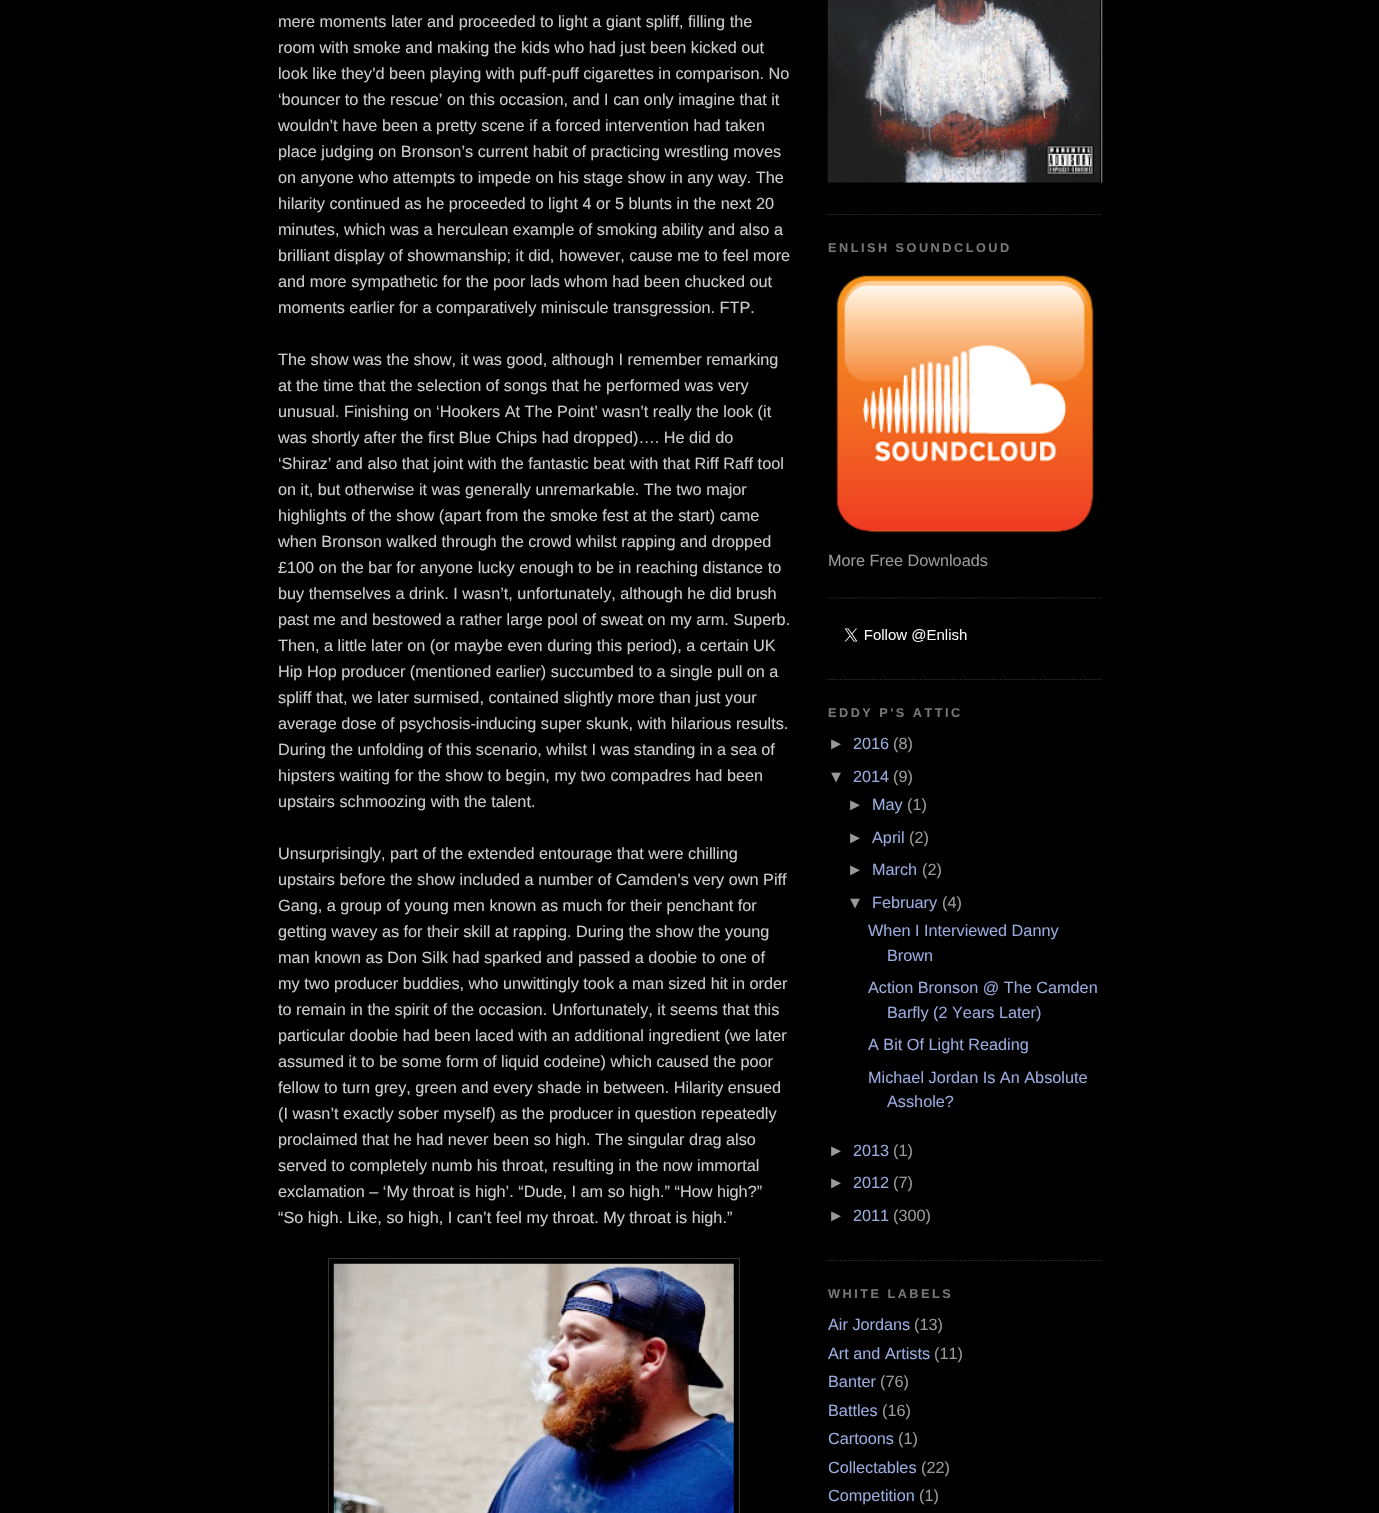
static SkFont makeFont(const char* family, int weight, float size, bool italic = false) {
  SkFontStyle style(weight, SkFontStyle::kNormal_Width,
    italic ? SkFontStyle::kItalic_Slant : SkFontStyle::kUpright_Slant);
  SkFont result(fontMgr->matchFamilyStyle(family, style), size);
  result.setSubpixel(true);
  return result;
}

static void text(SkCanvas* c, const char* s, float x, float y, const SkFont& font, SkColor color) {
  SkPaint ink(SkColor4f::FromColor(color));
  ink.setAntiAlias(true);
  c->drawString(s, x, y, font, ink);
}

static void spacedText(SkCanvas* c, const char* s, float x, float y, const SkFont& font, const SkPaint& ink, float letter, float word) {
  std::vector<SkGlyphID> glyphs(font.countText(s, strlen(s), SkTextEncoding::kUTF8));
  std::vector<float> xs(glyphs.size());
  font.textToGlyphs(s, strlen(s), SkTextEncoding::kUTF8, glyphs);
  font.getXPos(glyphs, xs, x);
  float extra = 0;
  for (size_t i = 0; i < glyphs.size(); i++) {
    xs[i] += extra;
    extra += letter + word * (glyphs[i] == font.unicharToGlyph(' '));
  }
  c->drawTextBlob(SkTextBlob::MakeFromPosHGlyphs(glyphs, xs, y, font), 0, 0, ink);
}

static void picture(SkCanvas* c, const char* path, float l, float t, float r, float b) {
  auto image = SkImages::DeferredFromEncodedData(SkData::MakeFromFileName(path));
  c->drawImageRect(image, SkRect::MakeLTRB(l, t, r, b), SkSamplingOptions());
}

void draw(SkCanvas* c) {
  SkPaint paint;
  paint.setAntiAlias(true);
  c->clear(0xff000000);
  SkFont face1 = makeFont("Liberation Sans", 400, 16.25f);
  text(c, "mere moments later and proceeded to light a giant spliff, filling the", 278, 27, face1, 0xffcccccc);
  text(c, "room with smoke and making the kids who had just been kicked out", 278, 53, face1, 0xffcccccc);
  text(c, "look like they’d been playing with puff-puff cigarettes in comparison. No", 278, 79, face1, 0xffcccccc);
  text(c, "‘bouncer to the rescue’ on this occasion, and I can only imagine that it", 278, 105, face1, 0xffcccccc);
  text(c, "wouldn’t have been a pretty scene if a forced intervention had taken", 278, 131, face1, 0xffcccccc);
  text(c, "place judging on Bronson’s current habit of practicing wrestling moves", 278, 157, face1, 0xffcccccc);
  text(c, "on anyone who attempts to impede on his stage show in any way. The", 278, 183, face1, 0xffcccccc);
  text(c, "hilarity continued as he proceeded to light 4 or 5 blunts in the next 20", 278, 209, face1, 0xffcccccc);
  text(c, "minutes, which was a herculean example of smoking ability and also a", 278, 235, face1, 0xffcccccc);
  text(c, "brilliant display of showmanship; it did, however, cause me to feel more", 278, 261, face1, 0xffcccccc);
  text(c, "and more sympathetic for the poor lads whom had been chucked out", 278, 287, face1, 0xffcccccc);
  text(c, "moments earlier for a comparatively miniscule transgression. FTP.", 278, 313, face1, 0xffcccccc);
  text(c, "The show was the show, it was good, although I remember remarking", 278, 365, face1, 0xffcccccc);
  text(c, "at the time that the selection of songs that he performed was very", 278, 391, face1, 0xffcccccc);
  text(c, "unusual. Finishing on ‘Hookers At The Point’ wasn’t really the look (it", 278, 417, face1, 0xffcccccc);
  text(c, "was shortly after the first Blue Chips had dropped)…. He did do", 278, 443, face1, 0xffcccccc);
  text(c, "‘Shiraz’ and also that joint with the fantastic beat with that Riff Raff tool", 278, 469, face1, 0xffcccccc);
  text(c, "on it, but otherwise it was generally unremarkable. The two major", 278, 495, face1, 0xffcccccc);
  text(c, "highlights of the show (apart from the smoke fest at the start) came", 278, 521, face1, 0xffcccccc);
  text(c, "when Bronson walked through the crowd whilst rapping and dropped", 278, 547, face1, 0xffcccccc);
  text(c, "£100 on the bar for anyone lucky enough to be in reaching distance to", 278, 573, face1, 0xffcccccc);
  text(c, "buy themselves a drink. I wasn’t, unfortunately, although he did brush", 278, 599, face1, 0xffcccccc);
  text(c, "past me and bestowed a rather large pool of sweat on my arm. Superb.", 278, 625, face1, 0xffcccccc);
  text(c, "Then, a little later on (or maybe even during this period), a certain UK", 278, 651, face1, 0xffcccccc);
  text(c, "Hip Hop producer (mentioned earlier) succumbed to a single pull on a", 278, 677, face1, 0xffcccccc);
  text(c, "spliff that, we later surmised, contained slightly more than just your", 278, 703, face1, 0xffcccccc);
  text(c, "average dose of psychosis-inducing super skunk, with hilarious results.", 278, 729, face1, 0xffcccccc);
  text(c, "During the unfolding of this scenario, whilst I was standing in a sea of", 278, 755, face1, 0xffcccccc);
  text(c, "hipsters waiting for the show to begin, my two compadres had been", 278, 781, face1, 0xffcccccc);
  text(c, "upstairs schmoozing with the talent.", 278, 807, face1, 0xffcccccc);
  text(c, "Unsurprisingly, part of the extended entourage that were chilling", 278, 859, face1, 0xffcccccc);
  text(c, "upstairs before the show included a number of Camden’s very own Piff", 278, 885, face1, 0xffcccccc);
  text(c, "Gang, a group of young men known as much for their penchant for", 278, 911, face1, 0xffcccccc);
  text(c, "getting wavey as for their skill at rapping. During the show the young", 278, 937, face1, 0xffcccccc);
  text(c, "man known as Don Silk had sparked and passed a doobie to one of", 278, 963, face1, 0xffcccccc);
  text(c, "my two producer buddies, who unwittingly took a man sized hit in order", 278, 989, face1, 0xffcccccc);
  text(c, "to remain in the spirit of the occasion. Unfortunately, it seems that this", 278, 1015, face1, 0xffcccccc);
  text(c, "particular doobie had been laced with an additional ingredient (we later", 278, 1041, face1, 0xffcccccc);
  text(c, "assumed it to be some form of liquid codeine) which caused the poor", 278, 1067, face1, 0xffcccccc);
  text(c, "fellow to turn grey, green and every shade in between. Hilarity ensued", 278, 1093, face1, 0xffcccccc);
  text(c, "(I wasn’t exactly sober myself) as the producer in question repeatedly", 278, 1119, face1, 0xffcccccc);
  text(c, "proclaimed that he had never been so high. The singular drag also", 278, 1145, face1, 0xffcccccc);
  text(c, "served to completely numb his throat, resulting in the now immortal", 278, 1171, face1, 0xffcccccc);
  text(c, "exclamation – ‘My throat is high’. “Dude, I am so high.” “How high?”", 278, 1197, face1, 0xffcccccc);
  text(c, "“So high. Like, so high, I can’t feel my throat. My throat is high.”", 278, 1223, face1, 0xffcccccc);
  paint.setStyle(SkPaint::kStroke_Style);
  paint.setStrokeWidth(1);
  paint.setColor(0xff333333);
  c->drawRect(SkRect::MakeLTRB(328.5f, 1258.5f, 739.5f, 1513.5f), paint);
  picture(c, "img_01.png", 333, 1263, 734, 1513);
  paint.setStrokeWidth(1.2f);
  paint.setPathEffect(SkDashPathEffect::Make({{1.25f, 1.25f}}, 0));
  c->drawPath(SkPathBuilder().moveTo(827.5f, 214.5f).lineTo(1102.5f, 214.5f).detach(), paint);
  paint.setPathEffect(nullptr);
  picture(c, "img_02.png", 827, 0, 1103, 183);
  paint.setPathEffect(SkDashPathEffect::Make({{1.25f, 1.25f}}, 0));
  c->drawPath(SkPathBuilder().moveTo(827.5f, 598).lineTo(1102.5f, 598).detach(), paint);
  paint.setPathEffect(nullptr);
  SkFont face2 = makeFont("Liberation Sans", 700, 12.7f);
  paint.setStyle(SkPaint::kFill_Style);
  paint.setColor(0xff777777);
  spacedText(c, "ENLISH SOUNDCLOUD", 828, 252, face2, paint, 2.5f, 0);
  picture(c, "img_03.png", 836, 275, 1094, 533);
  text(c, "More Free Downloads", 828, 566, face1, 0xff999999);
  paint.setStyle(SkPaint::kStroke_Style);
  paint.setColor(0xff333333);
  paint.setPathEffect(SkDashPathEffect::Make({{1.25f, 1.25f}}, 0));
  c->drawPath(SkPathBuilder().moveTo(827.5f, 679.5f).lineTo(1102.5f, 679.5f).detach(), paint);
  paint.setPathEffect(nullptr);
  picture(c, "img_04.png", 844, 628, 967, 642);
  paint.setPathEffect(SkDashPathEffect::Make({{1.25f, 1.25f}}, 0));
  c->drawPath(SkPathBuilder().moveTo(827.5f, 1260.5f).lineTo(1102.5f, 1260.5f).detach(), paint);
  paint.setPathEffect(nullptr);
  paint.setStyle(SkPaint::kFill_Style);
  paint.setColor(0xff777777);
  spacedText(c, "EDDY P'S ATTIC", 828, 717, face2, paint, 2.5f, 0);
  text(c, "►", 828, 749, face1, 0xff999999);
  text(c, "2016", 853, 749, face1, 0xff99aadd);
  text(c, "(8)", 893, 749, face1, 0xff999999);
  text(c, "▼", 828, 782, face1, 0xff999999);
  text(c, "2014", 853, 782, face1, 0xff99aadd);
  text(c, "(9)", 893, 782, face1, 0xff999999);
  text(c, "►", 847, 810, face1, 0xff999999);
  text(c, "May", 872, 810, face1, 0xff99aadd);
  text(c, "(1)", 907, 810, face1, 0xff999999);
  text(c, "►", 847, 843, face1, 0xff999999);
  text(c, "April", 872, 843, face1, 0xff99aadd);
  text(c, "(2)", 909, 843, face1, 0xff999999);
  text(c, "►", 847, 875, face1, 0xff999999);
  text(c, "March", 872, 875, face1, 0xff99aadd);
  text(c, "(2)", 922, 875, face1, 0xff999999);
  text(c, "▼", 847, 908, face1, 0xff999999);
  text(c, "February", 872, 908, face1, 0xff99aadd);
  text(c, "(4)", 942, 908, face1, 0xff999999);
  text(c, "When I Interviewed Danny", 868, 936, face1, 0xff99aadd);
  text(c, "Brown", 887, 961, face1, 0xff99aadd);
  text(c, "Action Bronson @ The Camden", 868, 993, face1, 0xff99aadd);
  text(c, "Barfly (2 Years Later)", 887, 1018, face1, 0xff99aadd);
  text(c, "A Bit Of Light Reading", 868, 1050, face1, 0xff99aadd);
  text(c, "Michael Jordan Is An Absolute", 868, 1083, face1, 0xff99aadd);
  text(c, "Asshole?", 887, 1107, face1, 0xff99aadd);
  text(c, "►", 828, 1156, face1, 0xff999999);
  text(c, "2013", 853, 1156, face1, 0xff99aadd);
  text(c, "(1)", 893, 1156, face1, 0xff999999);
  text(c, "►", 828, 1188, face1, 0xff999999);
  text(c, "2012", 853, 1188, face1, 0xff99aadd);
  text(c, "(7)", 893, 1188, face1, 0xff999999);
  text(c, "►", 828, 1221, face1, 0xff999999);
  text(c, "2011", 853, 1221, face1, 0xff99aadd);
  text(c, "(300)", 893, 1221, face1, 0xff999999);
  spacedText(c, "WHITE LABELS", 828, 1298, face2, paint, 2.5f, 0);
  text(c, "Air Jordans", 828, 1330, face1, 0xff99aadd);
  text(c, "(13)", 914, 1330, face1, 0xff999999);
  text(c, "Art and Artists", 828, 1359, face1, 0xff99aadd);
  text(c, "(11)", 934, 1359, face1, 0xff999999);
  text(c, "Banter", 828, 1387, face1, 0xff99aadd);
  text(c, "(76)", 880, 1387, face1, 0xff999999);
  text(c, "Battles", 828, 1416, face1, 0xff99aadd);
  text(c, "(16)", 882, 1416, face1, 0xff999999);
  text(c, "Cartoons", 828, 1444, face1, 0xff99aadd);
  text(c, "(1)", 898, 1444, face1, 0xff999999);
  text(c, "Collectables", 828, 1473, face1, 0xff99aadd);
  text(c, "(22)", 921, 1473, face1, 0xff999999);
  text(c, "Competition", 828, 1501, face1, 0xff99aadd);
  text(c, "(1)", 919, 1501, face1, 0xff999999);
}
